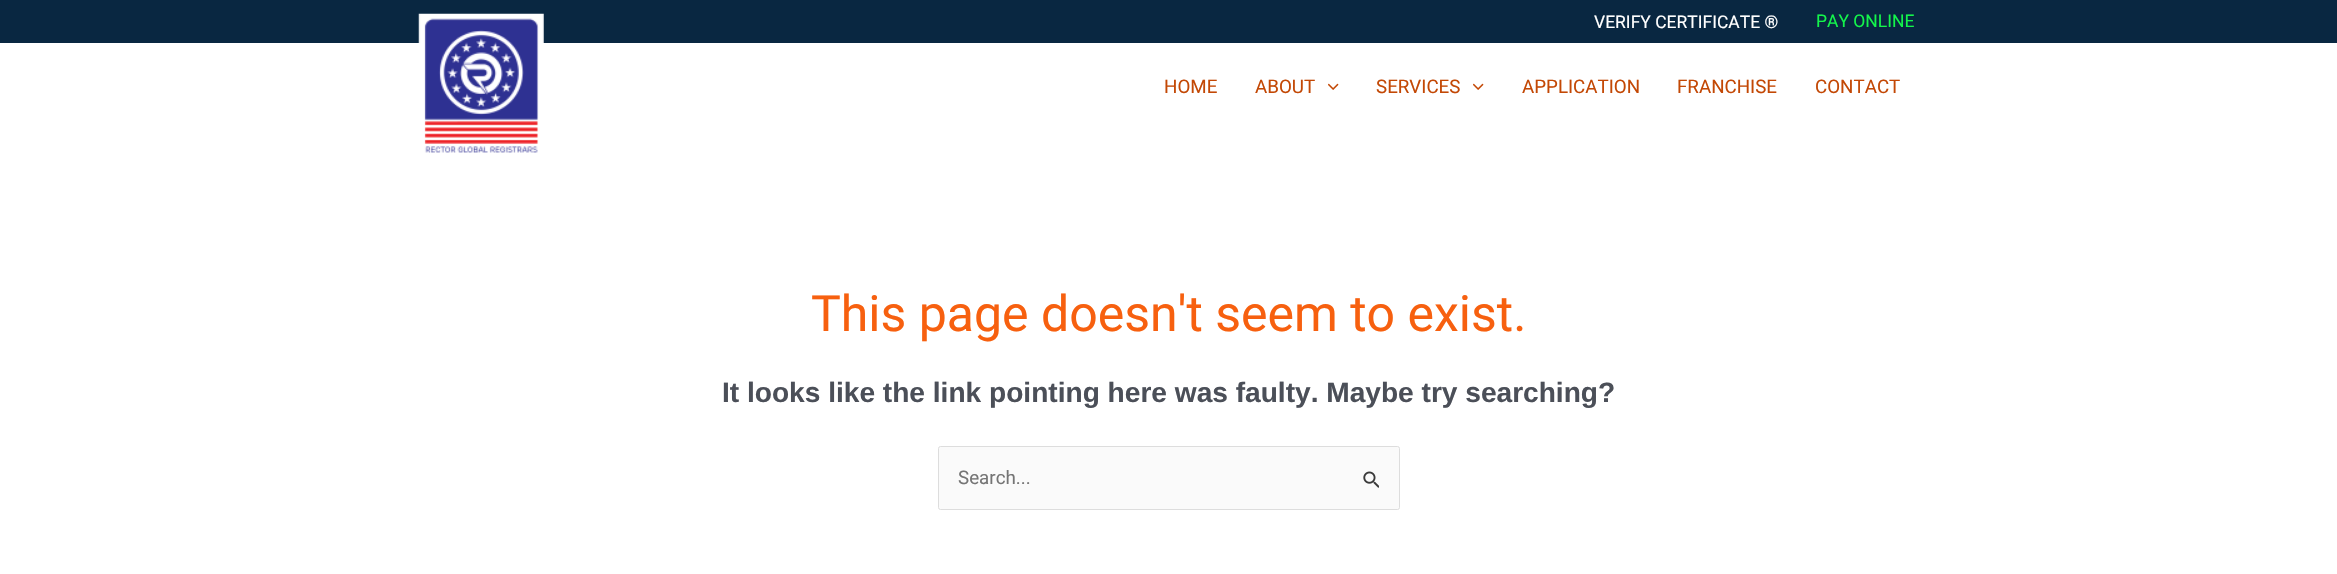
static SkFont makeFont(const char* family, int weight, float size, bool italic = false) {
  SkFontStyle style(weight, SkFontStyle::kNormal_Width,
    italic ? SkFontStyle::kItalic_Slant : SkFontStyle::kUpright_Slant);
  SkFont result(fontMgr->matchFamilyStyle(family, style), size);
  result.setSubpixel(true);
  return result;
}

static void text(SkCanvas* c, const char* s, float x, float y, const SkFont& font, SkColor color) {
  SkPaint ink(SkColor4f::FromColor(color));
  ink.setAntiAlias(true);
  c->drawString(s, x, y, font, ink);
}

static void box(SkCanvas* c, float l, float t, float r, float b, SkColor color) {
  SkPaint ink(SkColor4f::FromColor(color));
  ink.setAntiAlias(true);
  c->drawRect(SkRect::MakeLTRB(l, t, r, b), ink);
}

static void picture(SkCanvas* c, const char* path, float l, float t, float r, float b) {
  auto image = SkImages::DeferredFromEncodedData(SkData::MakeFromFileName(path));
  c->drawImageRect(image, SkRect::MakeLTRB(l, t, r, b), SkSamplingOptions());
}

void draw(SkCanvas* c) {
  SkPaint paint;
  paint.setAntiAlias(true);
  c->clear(0xffffffff);
  box(c, 0, 0, 2337, 43, 0xff092741);
  SkFont face1 = makeFont("Roboto", 400, 17.5f);
  text(c, "VERIFY CERTIFICATE ®", 1594, 28, face1, 0xffffffff);
  text(c, "PAY ONLINE", 1816, 27, face1, 0xff13f54b);
  picture(c, "img_01.png", 418, 13, 544, 153);
  SkFont face2 = makeFont("Roboto", 400, 18.75f);
  text(c, "HOME", 1164, 93, face2, 0xffc34805);
  text(c, "ABOUT", 1255, 93, face2, 0xffc34805);
  picture(c, "img_02.png", 1328, 83, 1339, 90);
  text(c, "SERVICES", 1376, 93, face2, 0xffc34805);
  picture(c, "img_02.png", 1473, 83, 1484, 90);
  text(c, "APPLICATION", 1522, 93, face2, 0xffc34805);
  text(c, "FRANCHISE", 1677, 93, face2, 0xffc34805);
  text(c, "CONTACT", 1815, 93, face2, 0xffc34805);
  SkFont face3 = makeFont("Roboto", 400, 50);
  text(c, "This page doesn't seem to exist.", 811, 331, face3, 0xfff7600f);
  SkFont face4 = makeFont("Liberation Sans", 700, 28.1f);
  text(c, "It looks like the link pointing here was faulty. Maybe try searching?", 722, 402, face4, 0xff4b4f58);
  paint.setColor(0xfffafafa);
  c->drawRoundRect(SkRect::MakeLTRB(938.5f, 446.5f, 1399.5f, 509.5f), 2, 2, paint);
  paint.setStyle(SkPaint::kStroke_Style);
  paint.setStrokeWidth(1);
  paint.setColor(0xffdddddd);
  c->drawRoundRect(SkRect::MakeLTRB(938.5f, 446.5f, 1399.5f, 509.5f), 2, 2, paint);
  text(c, "Search...", 958, 484, face2, 0xff757575);
  picture(c, "img_03.png", 1363, 471, 1379, 488);
}
